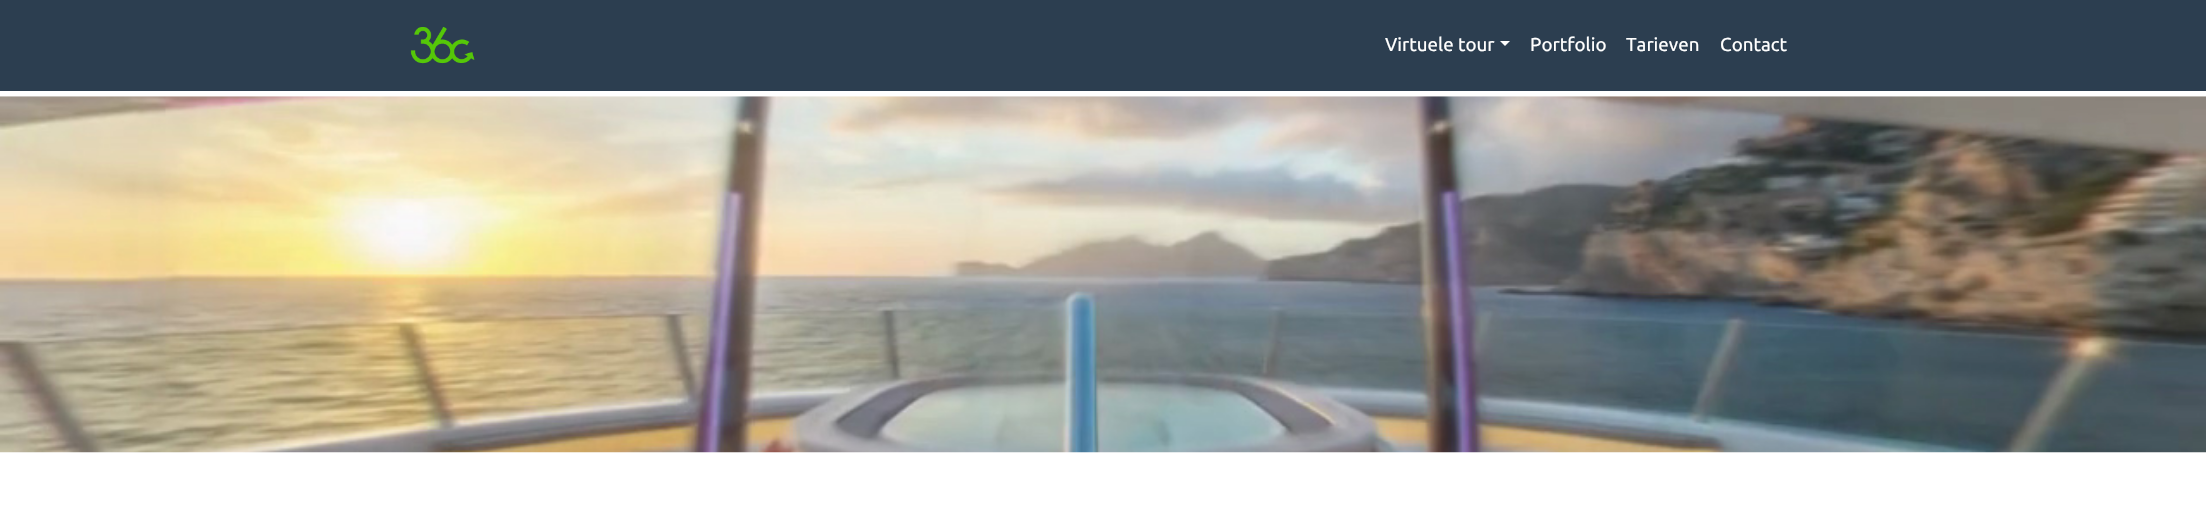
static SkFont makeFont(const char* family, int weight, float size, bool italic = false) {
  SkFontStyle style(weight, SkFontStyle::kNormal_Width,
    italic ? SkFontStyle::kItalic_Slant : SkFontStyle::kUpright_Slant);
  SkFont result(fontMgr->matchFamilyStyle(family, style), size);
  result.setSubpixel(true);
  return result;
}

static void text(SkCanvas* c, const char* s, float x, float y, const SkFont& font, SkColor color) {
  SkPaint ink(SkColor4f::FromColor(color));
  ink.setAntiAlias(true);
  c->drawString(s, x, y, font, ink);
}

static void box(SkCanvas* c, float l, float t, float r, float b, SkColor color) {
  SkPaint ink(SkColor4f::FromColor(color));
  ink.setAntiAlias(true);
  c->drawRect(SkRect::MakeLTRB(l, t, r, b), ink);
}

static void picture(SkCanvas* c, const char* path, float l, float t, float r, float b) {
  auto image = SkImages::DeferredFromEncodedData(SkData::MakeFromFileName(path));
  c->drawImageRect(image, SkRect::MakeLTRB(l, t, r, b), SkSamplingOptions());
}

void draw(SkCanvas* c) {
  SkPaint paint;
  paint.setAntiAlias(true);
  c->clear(0xffffffff);
  box(c, 0, 0, 2206, 91, 0xff2c3e50);
  picture(c, "img_01.png", 410, 27, 475, 64);
  SkFont face1 = makeFont("Ubuntu", 400, 18.75f);
  text(c, "Virtuele tour", 1385, 51, face1, 0xffffffff);
  paint.setColor(0xffffffff);
  c->drawPath(SkPathBuilder().moveTo(1500, 41).lineTo(1510, 41).lineTo(1505, 46).close().detach(), paint);
  text(c, "Portfolio", 1530, 51, face1, 0xffffffff);
  text(c, "Tarieven", 1626, 51, face1, 0xffffffff);
  text(c, "Contact", 1720, 51, face1, 0xffffffff);
  picture(c, "img_02.png", 0, 96, 2206, 453);
}
